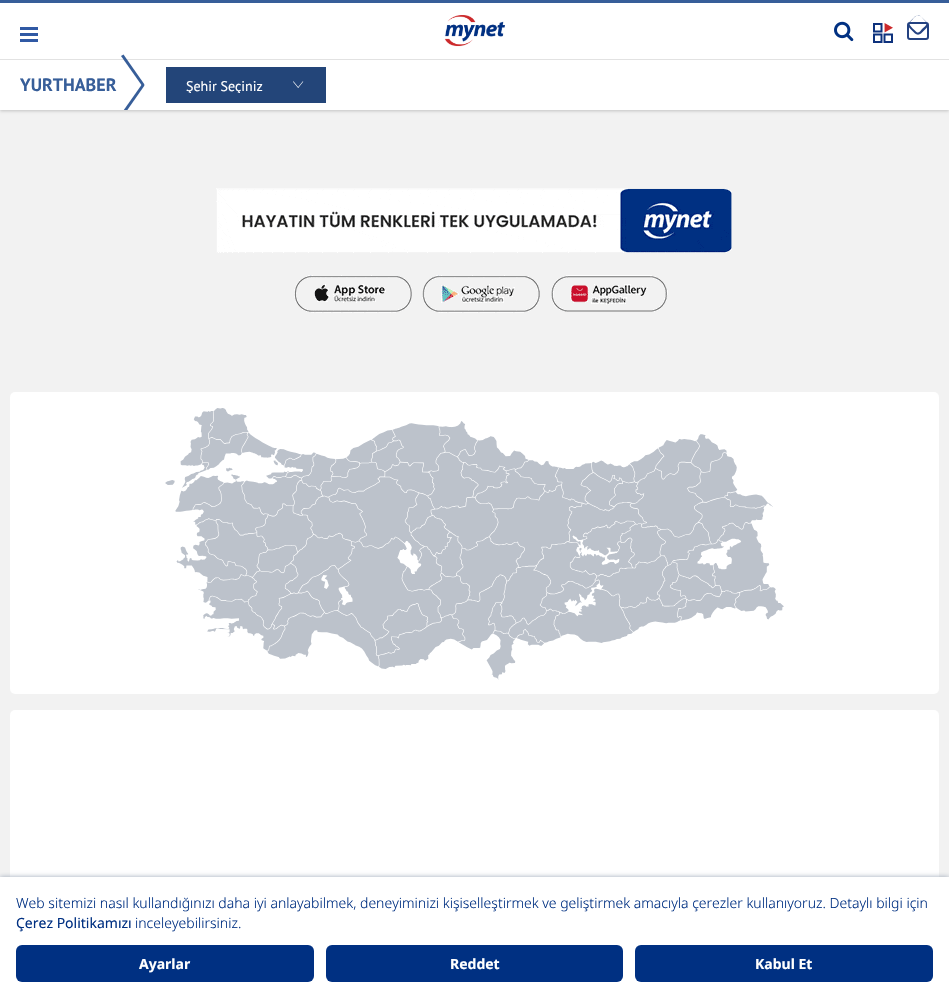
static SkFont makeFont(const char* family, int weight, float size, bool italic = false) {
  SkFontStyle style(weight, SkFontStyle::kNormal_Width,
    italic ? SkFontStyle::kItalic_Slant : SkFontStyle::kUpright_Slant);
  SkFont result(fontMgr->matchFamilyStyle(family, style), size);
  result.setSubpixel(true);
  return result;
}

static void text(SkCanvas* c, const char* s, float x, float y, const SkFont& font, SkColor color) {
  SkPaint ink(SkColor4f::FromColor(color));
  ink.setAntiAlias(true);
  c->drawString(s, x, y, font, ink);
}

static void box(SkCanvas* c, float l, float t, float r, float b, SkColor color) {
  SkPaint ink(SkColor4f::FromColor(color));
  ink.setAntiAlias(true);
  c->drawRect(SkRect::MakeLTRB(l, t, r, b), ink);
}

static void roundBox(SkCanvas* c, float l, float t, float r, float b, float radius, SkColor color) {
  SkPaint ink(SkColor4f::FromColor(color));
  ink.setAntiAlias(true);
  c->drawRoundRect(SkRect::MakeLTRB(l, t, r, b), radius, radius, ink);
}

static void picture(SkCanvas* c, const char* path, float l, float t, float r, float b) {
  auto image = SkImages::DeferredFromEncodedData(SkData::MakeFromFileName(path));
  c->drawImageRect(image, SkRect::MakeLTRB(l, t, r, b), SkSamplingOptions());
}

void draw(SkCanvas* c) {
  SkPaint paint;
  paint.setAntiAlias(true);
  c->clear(0xfff2f2f2);
  paint.setColor(0x33000000);
  paint.setMaskFilter(SkMaskFilter::MakeBlur(kNormal_SkBlurStyle, 1.5f));
  c->drawRect(SkRect::MakeLTRB(0, 61, 949, 111), paint);
  paint.setMaskFilter(nullptr);
  box(c, 0, 3, 949, 59, 0xffffffff);
  box(c, 0, 0, 949, 3, 0xff375e99);
  box(c, 0, 59, 949, 60, 0xffe2e2e2);
  box(c, 20, 27, 38, 30, 0xff3059a4);
  box(c, 20, 33, 38, 36, 0xff3059a4);
  box(c, 20, 39, 38, 42, 0xff3059a4);
  picture(c, "img_01.png", 444, 15, 505, 47);
  picture(c, "img_02.png", 834, 21, 854, 42);
  picture(c, "img_03.png", 873, 23, 893, 43);
  paint.setStyle(SkPaint::kStroke_Style);
  paint.setStrokeWidth(2);
  paint.setColor(0xff244281);
  c->drawRoundRect(SkRect::MakeLTRB(908, 23, 928, 39), 2, 2, paint);
  paint.setStyle(SkPaint::kFill_Style);
  c->drawPath(SkPathBuilder(SkPathFillType::kEvenOdd).moveTo(921, 16.5f).lineTo(926.5f, 22).cubicTo(928, 23.5f, 928, 26.5f, 926.5f, 28).lineTo(921, 33.5f).cubicTo(919.5f, 35, 916.5f, 35, 915, 33.5f).lineTo(909.5f, 28).cubicTo(908, 26.5f, 908, 23.5f, 909.5f, 22).lineTo(915, 16.5f).cubicTo(916.5f, 15, 919.5f, 15, 921, 16.5f).close().moveTo(921, 16.5f).lineTo(926.5f, 22.5f).cubicTo(927.5f, 24.5f, 923.5f, 28, 922, 29).cubicTo(921, 30.5f, 918.5f, 34, 916.5f, 32).cubicTo(914.5f, 30, 910, 26.5f, 909.5f, 24).lineTo(909.5f, 22.5f).lineTo(912.5f, 19.5f).cubicTo(914.5f, 17, 917.5f, 13.5f, 921, 16.5f).close().detach(), paint);
  box(c, 0, 60, 949, 110, 0xffffffff);
  SkFont face1 = makeFont("PT Sans", 700, 18);
  text(c, "YURTHABER", 20, 91, face1, 0xff375e99);
  paint.setColor(0xff375e99);
  c->drawPath(SkPathBuilder().moveTo(123.5f, 54.5f).lineTo(144.5f, 84.5f).lineTo(142.5f, 86.5f).lineTo(121, 56).close().detach(), paint);
  c->save();
  c->clipRect(SkRect::MakeLTRB(20, 60, 146, 110));
  c->drawPath(SkPathBuilder().moveTo(121, 114).lineTo(142.5f, 83.5f).lineTo(144.5f, 85.5f).lineTo(123.5f, 115.5f).close().detach(), paint);
  c->restore();
  box(c, 166, 67, 326, 103, 0xff234579);
  picture(c, "img_04.png", 293, 81, 304, 88);
  c->save();
  c->clipRect(SkRect::MakeLTRB(186, 79, 286, 93));
  SkFont face2 = makeFont("PT Sans", 400, 14);
  text(c, "Şehir Seçiniz", 186, 91, face2, 0xffffffff);
  c->restore();
  picture(c, "img_05.png", 216, 188, 732, 313);
  roundBox(c, 10, 392, 939, 694, 5, 0xffffffff);
  picture(c, "img_06.png", 165, 408, 784, 680);
  roundBox(c, 10, 710, 939, 992, 5, 0xffffffff);
  paint.setColor(0xff9ba7b7);
  paint.setMaskFilter(SkMaskFilter::MakeBlur(kNormal_SkBlurStyle, 2.5f));
  c->drawRect(SkRect::MakeLTRB(0, 877, 949, 998), paint);
  paint.setMaskFilter(nullptr);
  box(c, 0, 877, 949, 998, 0xffffffff);
  SkFont face3 = makeFont("Noto Sans", 300, 14);
  text(c, "Web sitemizi nasıl kullandığınızı daha iyi anlayabilmek, deneyiminizi kişiselleştirmek ve geliştirmek amacıyla çerezler kullanıyoruz. Detaylı bilgi için", 16, 908, face3, 0xff003082);
  SkFont face4 = makeFont("Noto Sans", 400, 14);
  text(c, "Çerez Politikamızı", 16, 928, face4, 0xff003082);
  text(c, "inceleyebilirsiniz.", 135, 928, face3, 0xff003082);
  roundBox(c, 16, 945, 314, 982, 6, 0xff003082);
  SkFont face5 = makeFont("Noto Sans", 700, 14);
  text(c, "Ayarlar", 139, 969, face5, 0xffffffff);
  roundBox(c, 326, 945, 623, 982, 6, 0xff003082);
  text(c, "Reddet", 450, 969, face5, 0xffffffff);
  roundBox(c, 635, 945, 933, 982, 6, 0xff003082);
  text(c, "Kabul Et", 755, 969, face5, 0xffffffff);
}
